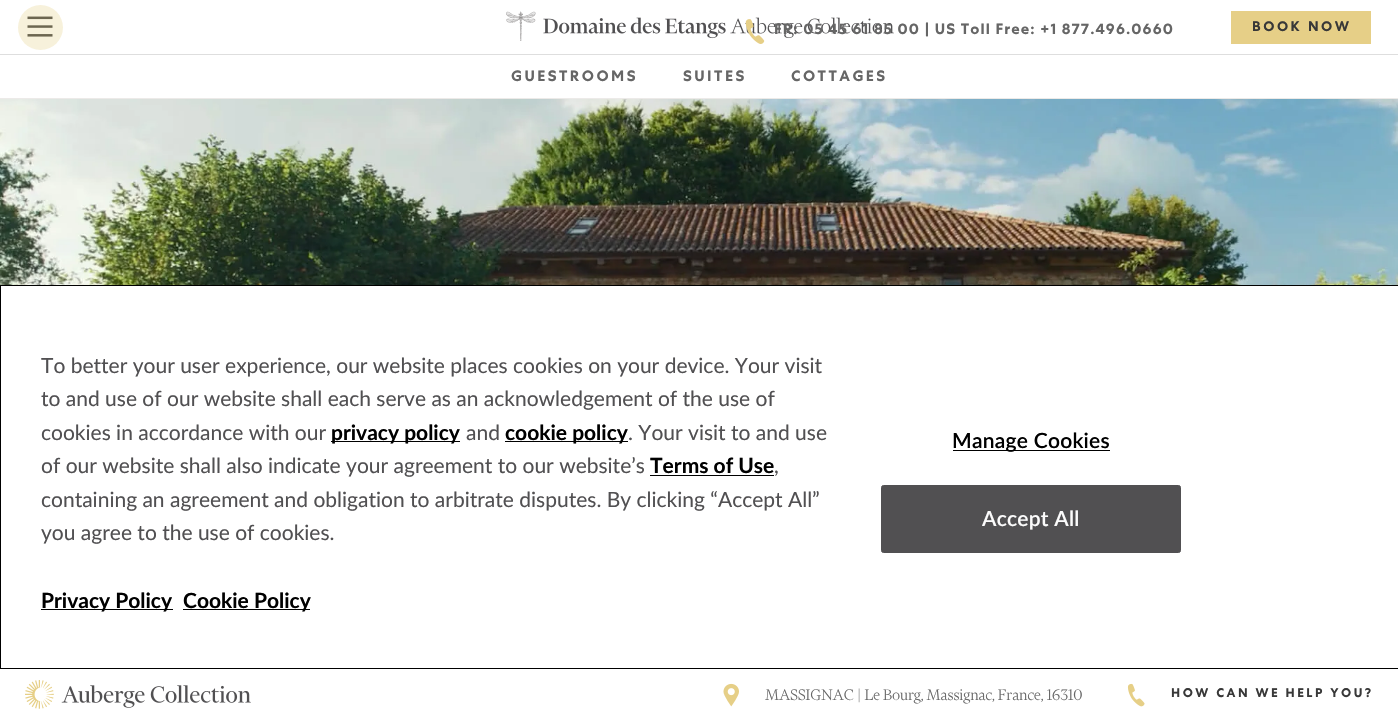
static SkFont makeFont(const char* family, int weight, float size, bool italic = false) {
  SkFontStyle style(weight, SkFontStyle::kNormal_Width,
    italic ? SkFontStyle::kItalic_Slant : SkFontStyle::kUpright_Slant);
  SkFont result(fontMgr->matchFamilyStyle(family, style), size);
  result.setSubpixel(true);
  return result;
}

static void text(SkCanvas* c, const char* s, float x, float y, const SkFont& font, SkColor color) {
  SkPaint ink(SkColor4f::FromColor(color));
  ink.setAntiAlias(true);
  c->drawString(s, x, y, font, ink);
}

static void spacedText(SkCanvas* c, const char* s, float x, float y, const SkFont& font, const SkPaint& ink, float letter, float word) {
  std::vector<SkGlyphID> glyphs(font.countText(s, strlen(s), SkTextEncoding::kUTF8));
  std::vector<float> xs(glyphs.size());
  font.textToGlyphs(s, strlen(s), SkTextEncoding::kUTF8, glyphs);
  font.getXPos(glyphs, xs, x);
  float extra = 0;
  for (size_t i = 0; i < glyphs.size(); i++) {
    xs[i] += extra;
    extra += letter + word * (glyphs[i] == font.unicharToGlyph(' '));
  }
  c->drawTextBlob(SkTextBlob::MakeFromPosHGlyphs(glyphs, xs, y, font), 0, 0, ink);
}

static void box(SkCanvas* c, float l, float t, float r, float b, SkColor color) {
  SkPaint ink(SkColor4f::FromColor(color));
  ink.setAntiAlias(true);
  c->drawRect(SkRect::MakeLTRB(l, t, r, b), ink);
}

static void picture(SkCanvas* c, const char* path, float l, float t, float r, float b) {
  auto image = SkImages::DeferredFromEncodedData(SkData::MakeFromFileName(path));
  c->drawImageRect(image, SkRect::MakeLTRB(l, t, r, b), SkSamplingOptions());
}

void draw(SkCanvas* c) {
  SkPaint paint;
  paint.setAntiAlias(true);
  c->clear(0xffffffff);
  box(c, 0, 54, 1398, 55, 0xffdedede);
  picture(c, "img_01.png", 27, 16, 53, 37);
  paint.setColor(0x4de6cf87);
  c->drawCircle(40.5f, 27.5f, 22.5f, paint);
  picture(c, "img_02.png", 506, 11, 894, 41);
  picture(c, "img_03.png", 745, 19, 765, 44);
  SkFont face1 = makeFont("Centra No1", 700, 15);
  paint.setColor(0xff666666);
  spacedText(c, "FR: 05 45 61 85 00 | US Toll Free: +1 877.496.0660", 774, 34, face1, paint, 1.12f, 0);
  box(c, 1231, 11, 1371, 44, 0xffe6cf87);
  SkFont face2 = makeFont("Centra No1", 700, 13.75f);
  paint.setColor(0xff383838);
  spacedText(c, "BOOK NOW", 1252, 31, face2, paint, 2.5f, 0);
  box(c, 0, 98, 1398, 99, 0xffeceae8);
  paint.setColor(0xff666666);
  spacedText(c, "GUESTROOMS", 511, 81, face1, paint, 2.5f, 0);
  spacedText(c, "SUITES", 683, 81, face1, paint, 2.5f, 0);
  spacedText(c, "COTTAGES", 791, 81, face1, paint, 2.5f, 0);
  picture(c, "img_04.png", 0, 99, 1398, 285);
  picture(c, "img_05.png", 25, 680, 251, 709);
  picture(c, "img_06.png", 723, 683, 739, 707);
  SkFont face3 = makeFont("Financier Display", 300, 17.5f);
  text(c, "MASSIGNAC | Le Bourg, Massignac, France, 16310", 765, 700, face3, 0xff666666);
  picture(c, "img_07.png", 1127, 683, 1145, 707);
  SkFont face4 = makeFont("Centra No1", 700, 12.5f);
  paint.setColor(0xff383838);
  spacedText(c, "HOW CAN WE HELP YOU?", 1171, 697, face4, paint, 2.5f, 0);
  paint.setStyle(SkPaint::kStroke_Style);
  paint.setStrokeWidth(1);
  paint.setColor(0xff000000);
  c->drawRect(SkRect::MakeLTRB(0.5f, 285.5f, 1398.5f, 668.5f), paint);
  SkFont face5 = makeFont("Lato", 400, 21);
  text(c, "To better your user experience, our website places cookies on your device. Your visit", 41, 373, face5, 0xff515052);
  text(c, "to and use of our website shall each serve as an acknowledgement of the use of", 41, 406, face5, 0xff515052);
  text(c, "cookies in accordance with our", 41, 440, face5, 0xff515052);
  box(c, 331, 441, 460, 442, 0xff000000);
  SkFont face6 = makeFont("Lato", 700, 21);
  text(c, "privacy policy", 331, 440, face6, 0xff000000);
  text(c, "and", 466, 440, face5, 0xff515052);
  box(c, 505, 441, 628, 442, 0xff000000);
  text(c, "cookie policy", 505, 440, face6, 0xff000000);
  text(c, ". Your visit to and use", 628, 440, face5, 0xff515052);
  text(c, "of our website shall also indicate your agreement to our website’s", 41, 473, face5, 0xff515052);
  text(c, "Terms of Use", 650, 473, face6, 0xff000000);
  box(c, 650, 475, 774, 476, 0xff000000);
  text(c, ",", 774, 473, face5, 0xff515052);
  text(c, "containing an agreement and obligation to arbitrate disputes. By clicking “Accept All”", 41, 507, face5, 0xff515052);
  text(c, "you agree to the use of cookies.", 41, 540, face5, 0xff515052);
  box(c, 41, 609, 173, 610, 0xff000000);
  text(c, "Privacy Policy", 41, 608, face6, 0xff000000);
  box(c, 183, 609, 310, 610, 0xff000000);
  text(c, "Cookie Policy", 183, 608, face6, 0xff000000);
  box(c, 953, 450, 1110, 451, 0xff000000);
  SkFont face7 = makeFont("Lato", 600, 21);
  paint.setStyle(SkPaint::kFill_Style);
  spacedText(c, "Manage Cookies", 952, 448, face7, paint, 0.25f, 0);
  paint.setColor(0xff515052);
  c->drawRoundRect(SkRect::MakeLTRB(881.5f, 485.5f, 1180.5f, 552.5f), 2, 2, paint);
  paint.setStyle(SkPaint::kStroke_Style);
  c->drawRoundRect(SkRect::MakeLTRB(881.5f, 485.5f, 1180.5f, 552.5f), 2, 2, paint);
  paint.setStyle(SkPaint::kFill_Style);
  paint.setColor(0xfffcfcfc);
  spacedText(c, "Accept All", 982, 526, face7, paint, 0.25f, 0);
}
